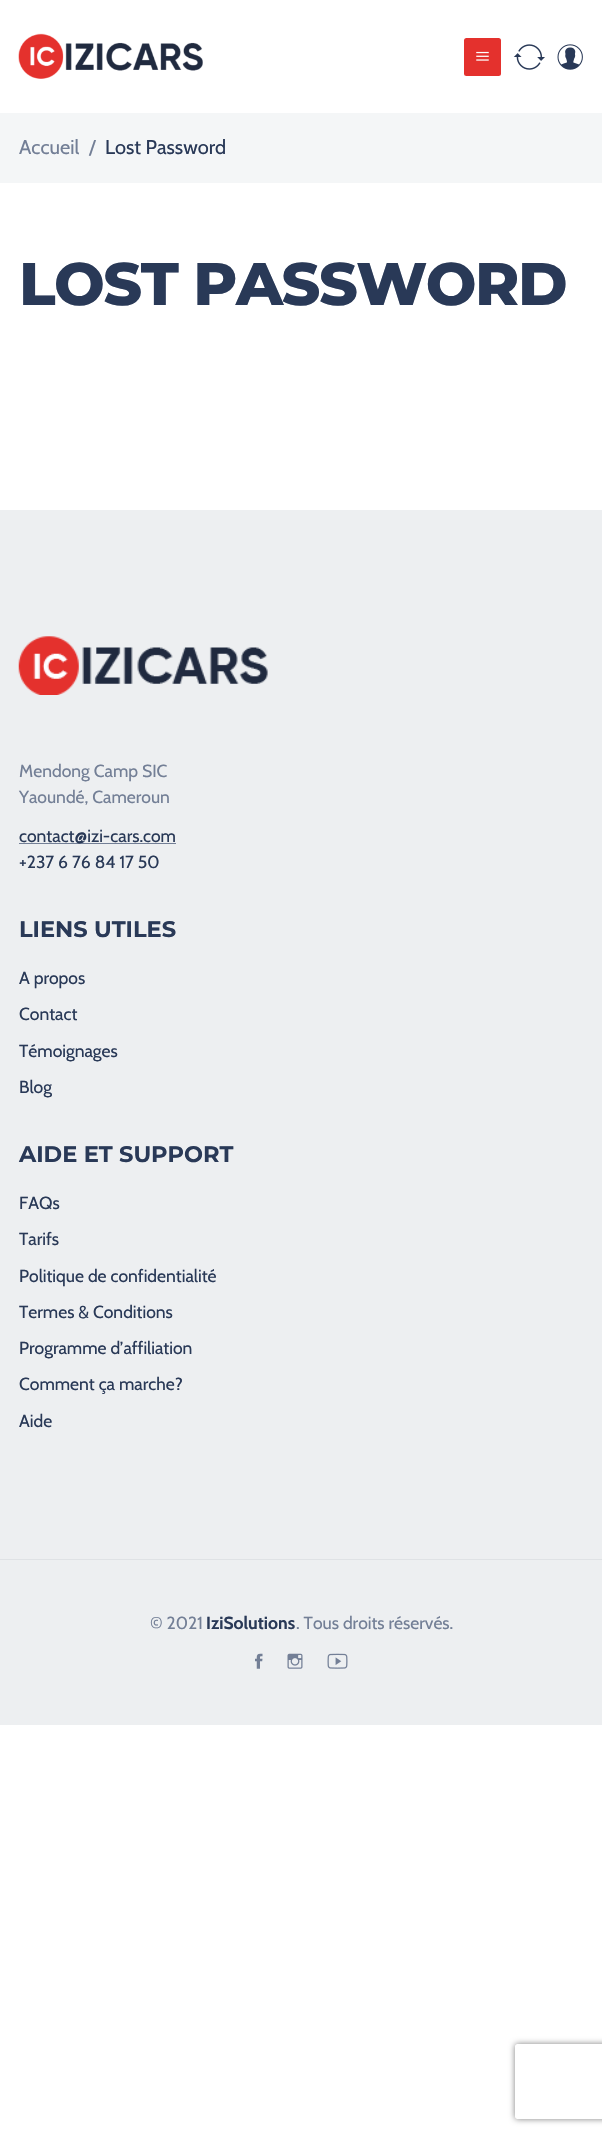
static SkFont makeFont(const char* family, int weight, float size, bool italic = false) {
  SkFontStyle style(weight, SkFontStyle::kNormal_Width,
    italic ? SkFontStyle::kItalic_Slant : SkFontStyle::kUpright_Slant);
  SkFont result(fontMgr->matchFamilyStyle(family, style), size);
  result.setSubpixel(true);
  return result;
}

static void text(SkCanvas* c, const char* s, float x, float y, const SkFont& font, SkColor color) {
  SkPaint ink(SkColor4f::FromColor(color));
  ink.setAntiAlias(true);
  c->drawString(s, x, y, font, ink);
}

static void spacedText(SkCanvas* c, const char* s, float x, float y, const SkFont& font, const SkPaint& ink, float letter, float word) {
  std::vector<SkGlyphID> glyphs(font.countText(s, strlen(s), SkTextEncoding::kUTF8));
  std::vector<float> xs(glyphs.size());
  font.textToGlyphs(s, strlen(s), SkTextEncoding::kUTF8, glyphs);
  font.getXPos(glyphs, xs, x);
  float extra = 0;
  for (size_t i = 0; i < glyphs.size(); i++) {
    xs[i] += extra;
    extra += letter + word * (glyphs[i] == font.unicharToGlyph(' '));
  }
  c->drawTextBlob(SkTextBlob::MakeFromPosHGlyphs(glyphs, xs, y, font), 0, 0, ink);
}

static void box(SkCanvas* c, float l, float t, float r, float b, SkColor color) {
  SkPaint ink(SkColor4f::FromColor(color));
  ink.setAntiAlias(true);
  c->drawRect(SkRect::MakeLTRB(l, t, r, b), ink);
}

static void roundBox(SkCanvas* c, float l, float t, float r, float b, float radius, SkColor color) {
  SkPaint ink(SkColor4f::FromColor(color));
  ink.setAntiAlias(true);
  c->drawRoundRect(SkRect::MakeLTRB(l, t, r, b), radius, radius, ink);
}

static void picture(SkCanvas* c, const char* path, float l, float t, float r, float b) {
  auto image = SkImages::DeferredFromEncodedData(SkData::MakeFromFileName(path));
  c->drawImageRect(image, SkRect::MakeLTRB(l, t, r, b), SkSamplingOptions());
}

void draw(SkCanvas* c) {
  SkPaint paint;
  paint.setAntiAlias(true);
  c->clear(0xffffffff);
  picture(c, "img_01.png", 18, 33, 203, 79);
  roundBox(c, 464, 38, 501, 76, 2.5f, 0xffe4312d);
  picture(c, "img_02.png", 476, 51, 489, 61);
  picture(c, "img_03.png", 513, 44, 545, 70);
  picture(c, "img_04.png", 557, 44, 583, 70);
  box(c, 0, 113, 602, 183, 0xfff4f6f7);
  SkFont face1 = makeFont("Cabin", 400, 20);
  text(c, "Accueil", 19, 154, face1, 0xff737f96);
  text(c, "/", 89, 154, face1, 0xff737f96);
  text(c, "Lost Password", 105, 154, face1, 0xff293957);
  SkFont face2 = makeFont("Montserrat", 800, 60);
  paint.setColor(0xff293957);
  spacedText(c, "LOST PASSWORD", 19, 305, face2, paint, -1.5f, 0);
  box(c, 0, 510, 602, 1725, 0xffedeff1);
  picture(c, "img_05.png", 18, 636, 268, 695);
  SkFont face3 = makeFont("Cabin", 400, 17.5f);
  text(c, "Mendong Camp SIC", 19, 777, face3, 0xff737f96);
  text(c, "Yaoundé, Cameroun", 19, 803, face3, 0xff737f96);
  box(c, 19, 843, 176, 844, 0xff737f96);
  text(c, "contact@izi-cars.com", 19, 842, face3, 0xff293957);
  text(c, "+237 6 76 84 17 50", 19, 868, face3, 0xff293957);
  SkFont face4 = makeFont("Montserrat", 700, 22.5f);
  text(c, "LIENS UTILES", 19, 937, face4, 0xff293957);
  text(c, "A propos", 19, 984, face3, 0xff293957);
  text(c, "Contact", 19, 1020, face3, 0xff293957);
  text(c, "Témoignages", 19, 1057, face3, 0xff293957);
  text(c, "Blog", 19, 1093, face3, 0xff293957);
  text(c, "AIDE ET SUPPORT", 19, 1162, face4, 0xff293957);
  text(c, "FAQs", 19, 1209, face3, 0xff293957);
  text(c, "Tarifs", 19, 1245, face3, 0xff293957);
  text(c, "Politique de confidentialité", 19, 1282, face3, 0xff293957);
  text(c, "Termes & Conditions", 19, 1318, face3, 0xff293957);
  text(c, "Programme d’affiliation", 19, 1354, face3, 0xff293957);
  text(c, "Comment ça marche?", 19, 1390, face3, 0xff293957);
  text(c, "Aide", 19, 1427, face3, 0xff293957);
  box(c, 0, 1559, 602, 1560, 0xffdfe2e5);
  text(c, "© 2021", 150, 1629, face3, 0xff737f96);
  SkFont face5 = makeFont("Cabin", 700, 17.5f);
  text(c, "IziSolutions", 206, 1629, face5, 0xff293957);
  text(c, ". Tous droits réservés.", 296, 1629, face3, 0xff737f96);
  picture(c, "img_06.png", 255, 1653, 263, 1669);
  picture(c, "img_07.png", 287, 1653, 303, 1669);
  picture(c, "img_08.png", 327, 1653, 348, 1669);
  c->save();
  c->clipPath(SkPathBuilder(SkPathFillType::kEvenOdd).moveTo(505, 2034).lineTo(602, 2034).lineTo(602, 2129).lineTo(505, 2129).close().moveTo(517.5f, 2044).lineTo(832.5f, 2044).cubicTo(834, 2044, 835, 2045, 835, 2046.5f).lineTo(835, 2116.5f).cubicTo(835, 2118, 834, 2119, 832.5f, 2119).lineTo(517.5f, 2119).cubicTo(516, 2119, 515, 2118, 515, 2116.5f).lineTo(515, 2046.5f).cubicTo(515, 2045, 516, 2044, 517.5f, 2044).close().detach(), true);
  paint.setColor(0xff808080);
  paint.setMaskFilter(SkMaskFilter::MakeBlur(kNormal_SkBlurStyle, 3));
  c->drawRoundRect(SkRect::MakeLTRB(515, 2044, 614, 2119), 2.5f, 2.5f, paint);
  paint.setMaskFilter(nullptr);
  c->restore();
}
